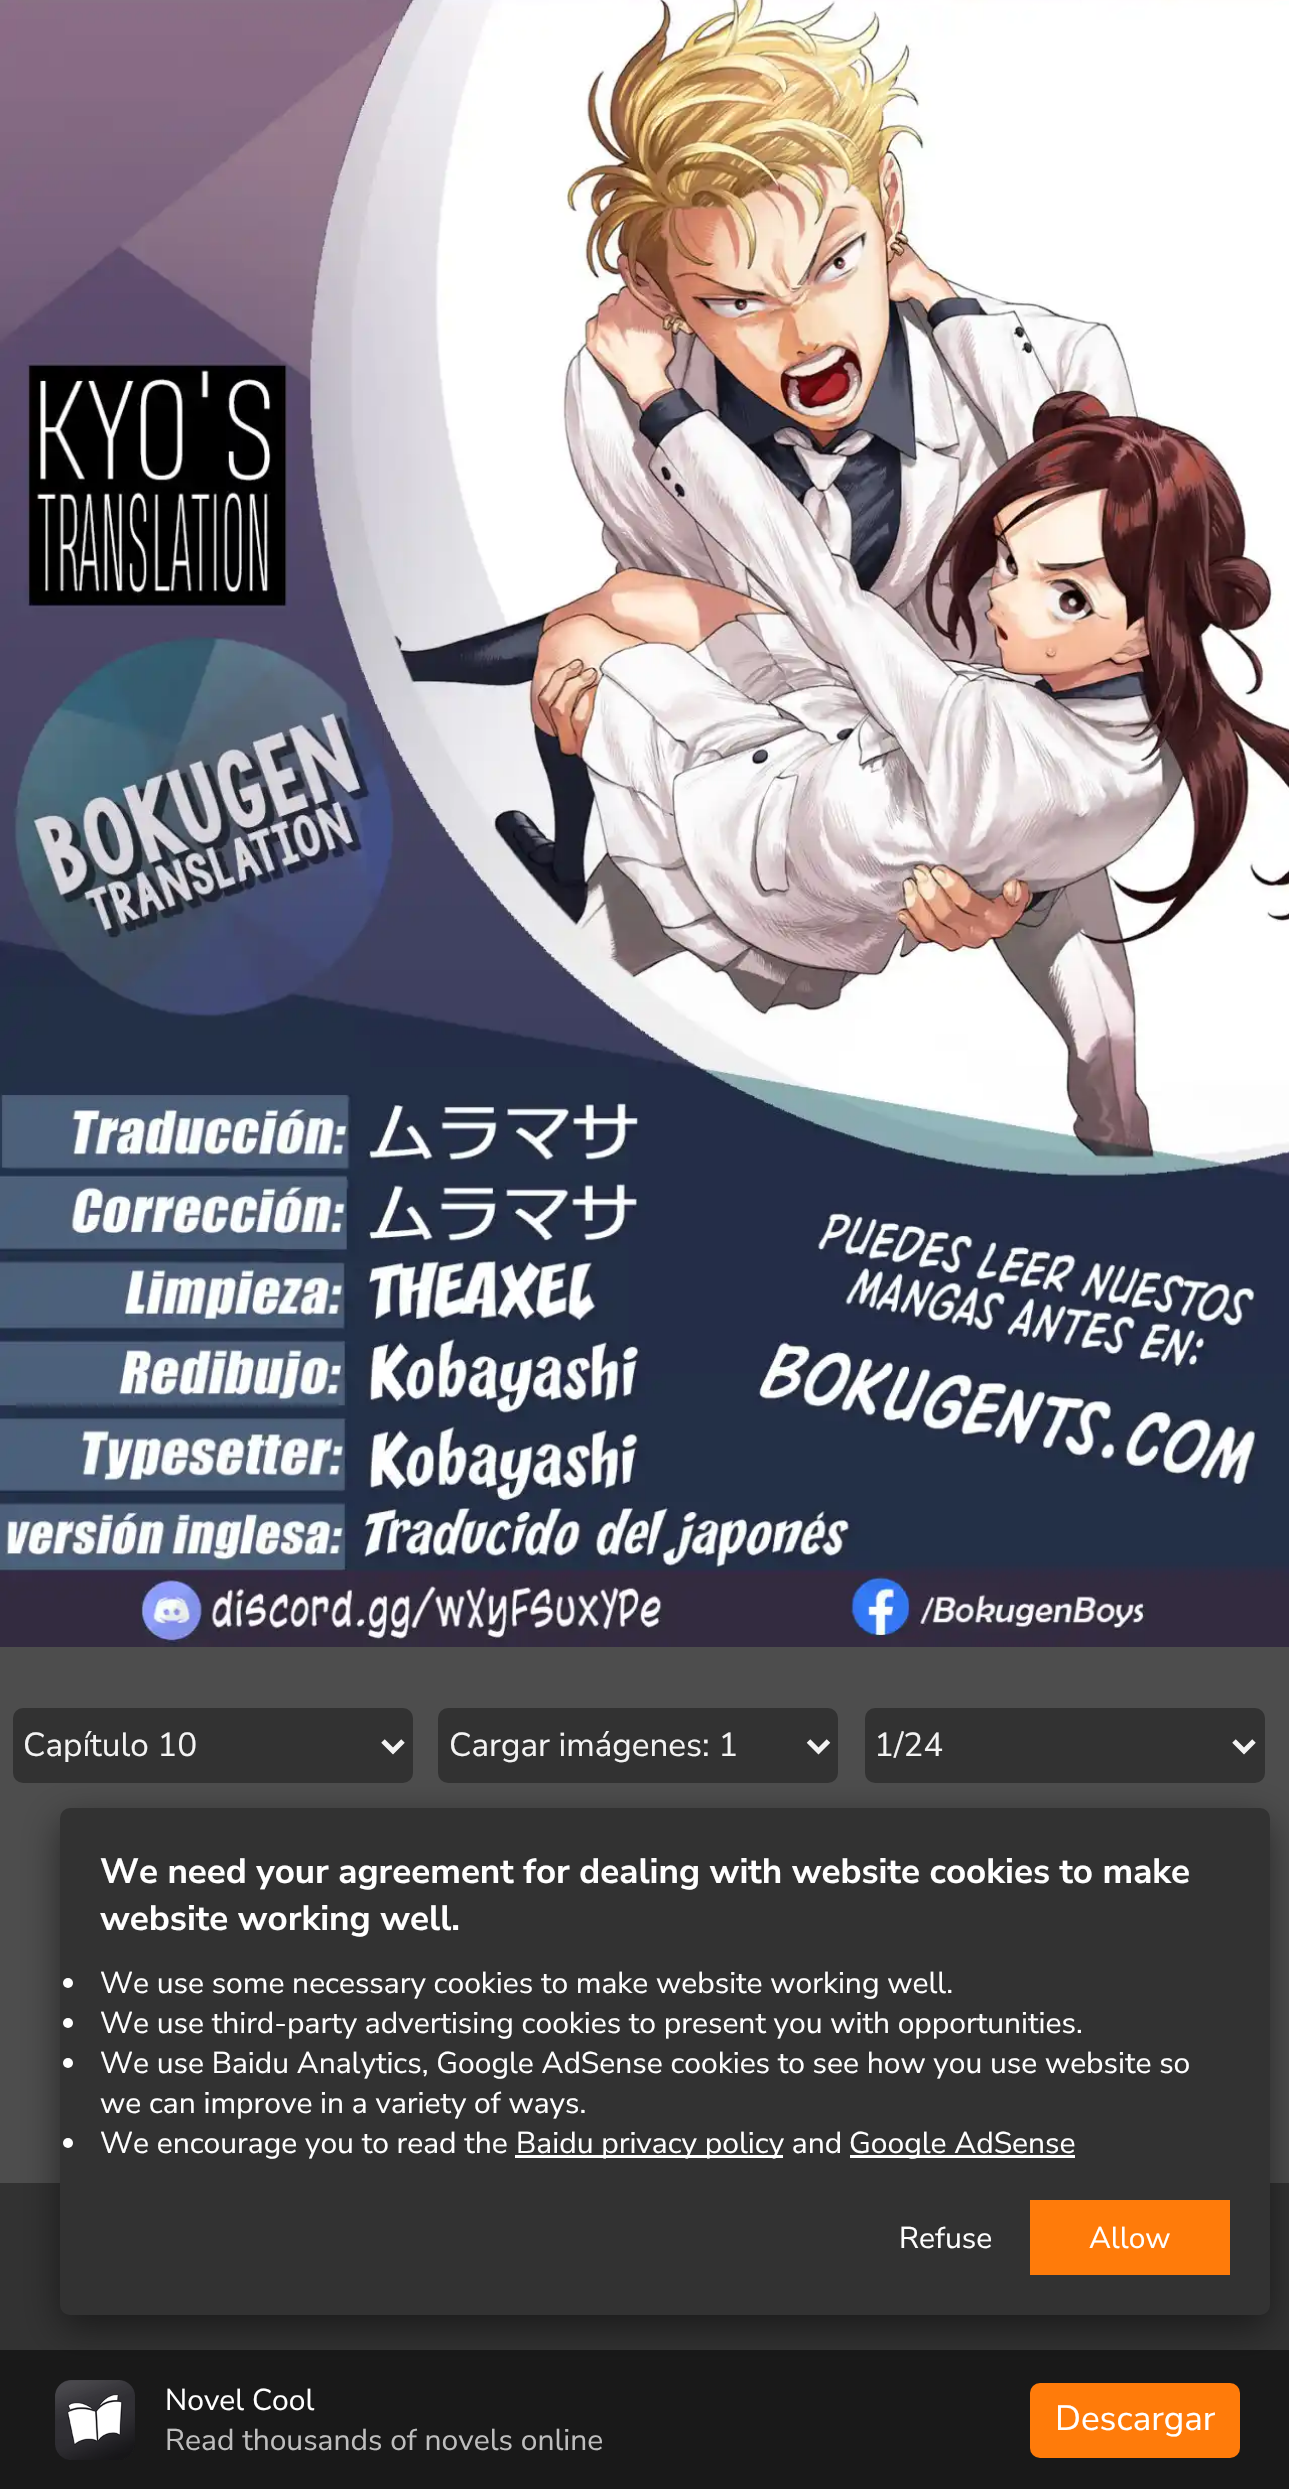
static SkFont makeFont(const char* family, int weight, float size, bool italic = false) {
  SkFontStyle style(weight, SkFontStyle::kNormal_Width,
    italic ? SkFontStyle::kItalic_Slant : SkFontStyle::kUpright_Slant);
  SkFont result(fontMgr->matchFamilyStyle(family, style), size);
  result.setSubpixel(true);
  return result;
}

static void text(SkCanvas* c, const char* s, float x, float y, const SkFont& font, SkColor color) {
  SkPaint ink(SkColor4f::FromColor(color));
  ink.setAntiAlias(true);
  c->drawString(s, x, y, font, ink);
}

static void box(SkCanvas* c, float l, float t, float r, float b, SkColor color) {
  SkPaint ink(SkColor4f::FromColor(color));
  ink.setAntiAlias(true);
  c->drawRect(SkRect::MakeLTRB(l, t, r, b), ink);
}

static void roundBox(SkCanvas* c, float l, float t, float r, float b, float radius, SkColor color) {
  SkPaint ink(SkColor4f::FromColor(color));
  ink.setAntiAlias(true);
  c->drawRoundRect(SkRect::MakeLTRB(l, t, r, b), radius, radius, ink);
}

static void picture(SkCanvas* c, const char* path, float l, float t, float r, float b) {
  auto image = SkImages::DeferredFromEncodedData(SkData::MakeFromFileName(path));
  c->drawImageRect(image, SkRect::MakeLTRB(l, t, r, b), SkSamplingOptions());
}

void draw(SkCanvas* c) {
  SkPaint paint;
  paint.setAntiAlias(true);
  c->clear(0xff4d4d4d);
  picture(c, "img_01.png", 0, 0, 1289, 1647);
  roundBox(c, 13, 1708, 413, 1783, 10, 0xff323232);
  paint.setStyle(SkPaint::kStroke_Style);
  paint.setStrokeWidth(5);
  paint.setColor(0xfff3f3f3);
  c->drawPath(SkPathBuilder().moveTo(383, 1741).lineTo(393, 1751).lineTo(403, 1741).detach(), paint);
  SkFont face1 = makeFont("Nunito Sans", 400, 33.25f);
  text(c, "Capítulo 10", 23, 1756, face1, 0xfff3f3f3);
  roundBox(c, 438, 1708, 838, 1783, 10, 0xff323232);
  c->drawPath(SkPathBuilder().moveTo(808.5f, 1741).lineTo(818.5f, 1751).lineTo(828.5f, 1741).detach(), paint);
  text(c, "Cargar imágenes: 1", 449, 1756, face1, 0xfff3f3f3);
  roundBox(c, 865, 1708, 1265, 1783, 10, 0xff323232);
  c->drawPath(SkPathBuilder().moveTo(1234, 1741).lineTo(1244, 1751).lineTo(1254, 1741).detach(), paint);
  text(c, "1/24", 874, 1756, face1, 0xfff3f3f3);
  box(c, 0, 2183, 1289, 2489, 0xff323232);
  paint.setStyle(SkPaint::kFill_Style);
  paint.setColor(0x80000000);
  paint.setMaskFilter(SkMaskFilter::MakeBlur(kNormal_SkBlurStyle, 19));
  c->drawRoundRect(SkRect::MakeLTRB(60, 1820, 1270, 2328), 10, 10, paint);
  paint.setMaskFilter(nullptr);
  roundBox(c, 60, 1808, 1270, 2315, 10, 0xff323232);
  SkFont face2 = makeFont("Nunito Sans", 700, 35);
  text(c, "We need your agreement for dealing with website cookies to make", 100, 1883, face2, 0xffffffff);
  text(c, "website working well.", 100, 1930, face2, 0xffffffff);
  paint.setColor(0xffffffff);
  c->drawCircle(68, 1983, 5, paint);
  SkFont face3 = makeFont("Nunito Sans", 400, 30);
  text(c, "We use some necessary cookies to make website working well.", 100, 1993, face3, 0xffffffff);
  c->drawCircle(68, 2023, 5, paint);
  text(c, "We use third-party advertising cookies to present you with opportunities.", 100, 2033, face3, 0xffffffff);
  c->drawCircle(68, 2063, 5, paint);
  text(c, "We use Baidu Analytics, Google AdSense cookies to see how you use website so", 100, 2073, face3, 0xffffffff);
  text(c, "we can improve in a variety of ways.", 100, 2113, face3, 0xffffffff);
  c->drawCircle(68, 2143, 5, paint);
  text(c, "We encourage you to read the", 100, 2153, face3, 0xffffffff);
  box(c, 515, 2155, 783, 2158, 0xffffffff);
  text(c, "Baidu privacy policy and", 516, 2153, face3, 0xffffffff);
  box(c, 850, 2155, 1075, 2158, 0xffffffff);
  text(c, "Google AdSense", 849, 2153, face3, 0xffffffff);
  text(c, "Refuse", 899, 2248, face3, 0xffffffff);
  box(c, 1030, 2200, 1230, 2275, 0xffff7b0a);
  text(c, "Allow", 1089, 2248, face3, 0xffffffff);
  box(c, 0, 2350, 1289, 2489, 0x80000000);
  picture(c, "img_02.png", 55, 2380, 135, 2460);
  text(c, "Novel Cool", 165, 2410, face3, 0xffffffff);
  text(c, "Read thousands of novels online", 165, 2450, face3, 0xffbebebe);
  roundBox(c, 1030, 2383, 1240, 2458, 10, 0xffff7b0a);
  SkFont face4 = makeFont("Nunito Sans", 400, 35);
  text(c, "Descargar", 1055, 2430, face4, 0xffffffff);
}
